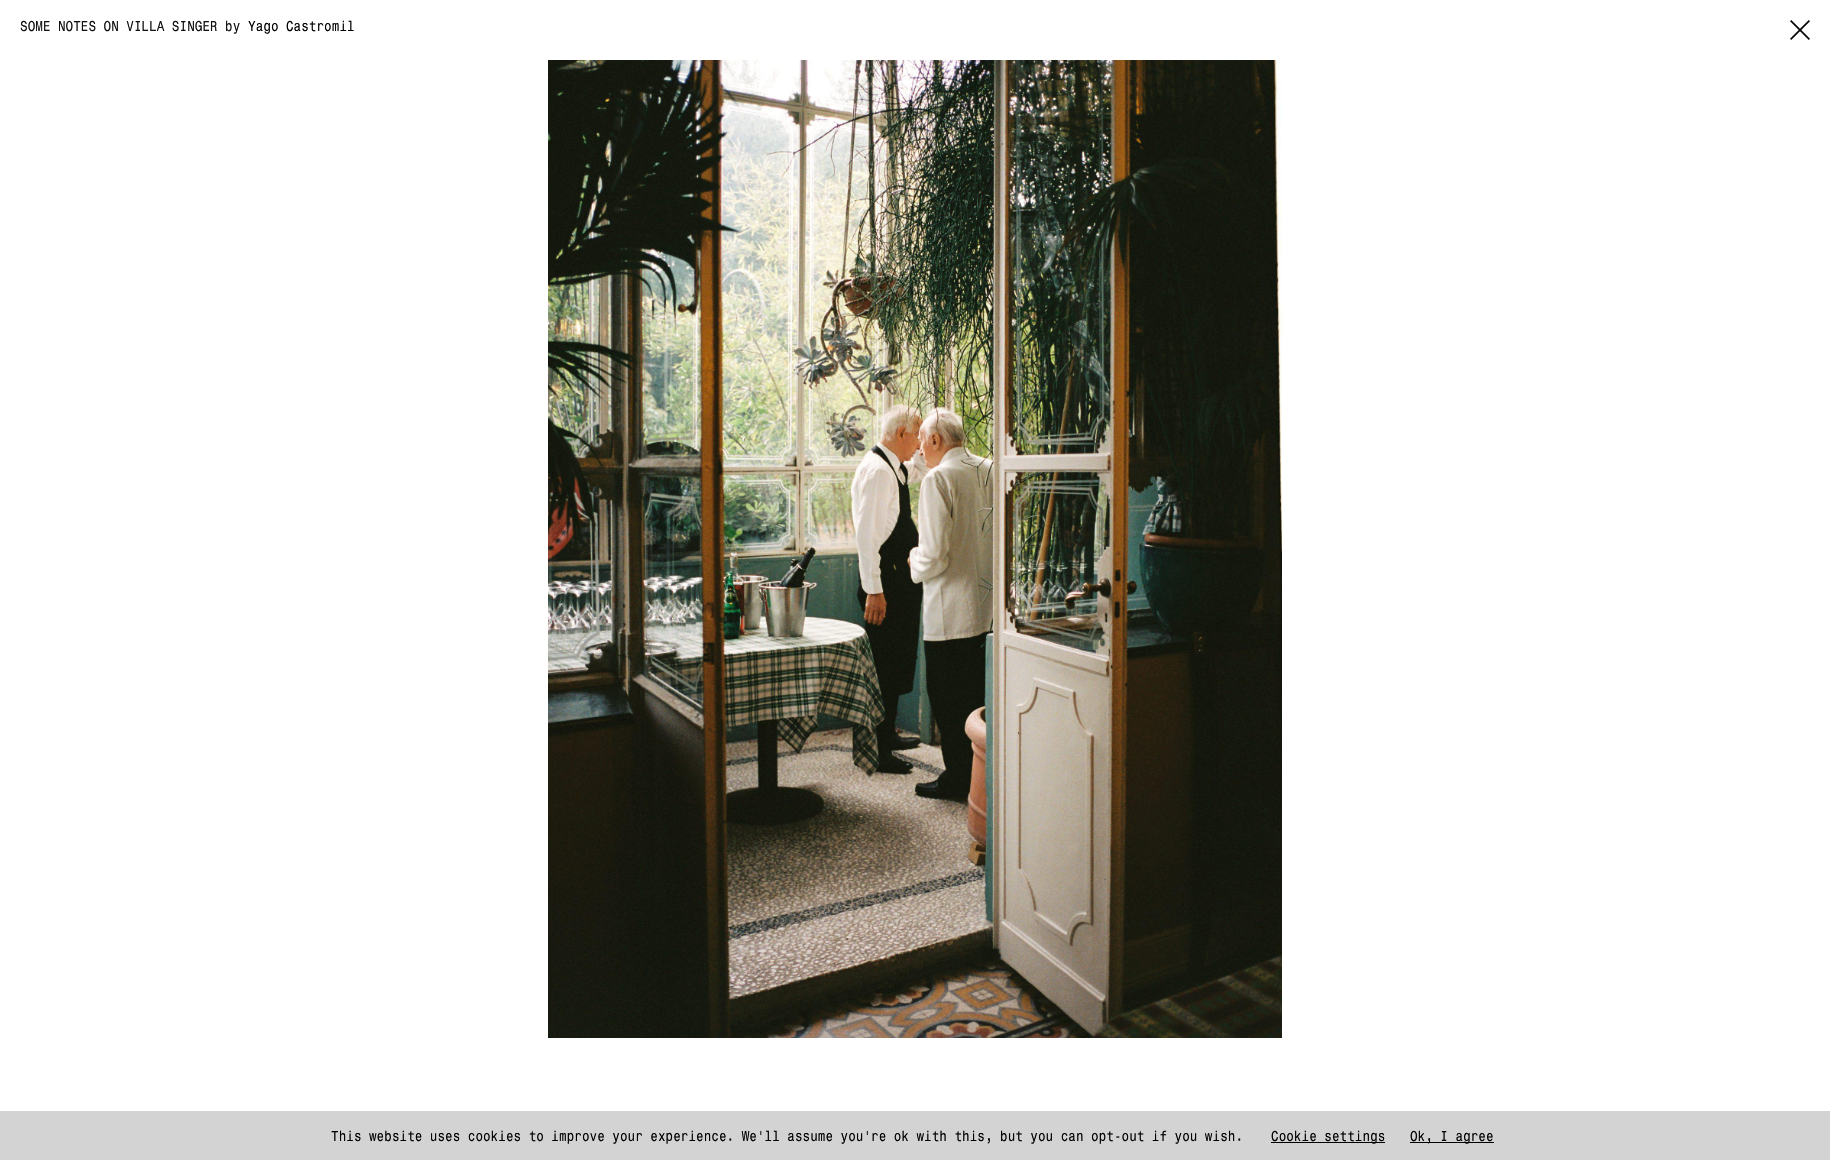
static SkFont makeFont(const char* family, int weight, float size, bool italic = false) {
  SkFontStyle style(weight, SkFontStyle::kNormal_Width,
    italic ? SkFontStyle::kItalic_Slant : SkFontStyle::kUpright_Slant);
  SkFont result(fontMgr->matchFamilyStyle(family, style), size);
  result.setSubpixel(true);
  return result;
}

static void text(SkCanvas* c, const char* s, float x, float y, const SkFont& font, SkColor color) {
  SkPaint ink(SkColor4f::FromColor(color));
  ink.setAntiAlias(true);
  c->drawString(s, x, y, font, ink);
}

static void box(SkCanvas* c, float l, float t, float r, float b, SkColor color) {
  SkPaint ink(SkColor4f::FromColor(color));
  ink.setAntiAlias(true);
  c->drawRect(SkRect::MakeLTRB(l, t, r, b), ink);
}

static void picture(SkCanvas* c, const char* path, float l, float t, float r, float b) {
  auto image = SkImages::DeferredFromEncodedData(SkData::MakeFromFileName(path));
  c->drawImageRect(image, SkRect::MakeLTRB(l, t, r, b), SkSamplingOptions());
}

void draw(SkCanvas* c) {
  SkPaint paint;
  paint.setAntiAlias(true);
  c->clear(0xffffffff);
  SkFont face1 = makeFont("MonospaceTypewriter", 500, 13);
  text(c, "SOME NOTES ON VILLA SINGER by", 20, 31, face1, 0xff111111);
  text(c, "Yago Castromil", 248, 31, face1, 0xff000000);
  picture(c, "img_01.png", 1790, 20, 1810, 40);
  picture(c, "img_02.png", 548, 60, 1282, 1038);
  box(c, 0, 1111, 1830, 1160, 0xffd3d3d3);
  text(c, "This website uses cookies to improve your experience. We'll assume you're ok with this, but you can opt-out if you wish.", 331, 1141, face1, 0xff000000);
  box(c, 1271, 1142, 1385, 1143, 0xff000000);
  text(c, "Cookie settings", 1271, 1141, face1, 0xff000000);
  box(c, 1410, 1142, 1494, 1143, 0xff000000);
  text(c, "Ok, I agree", 1410, 1141, face1, 0xff000000);
}
